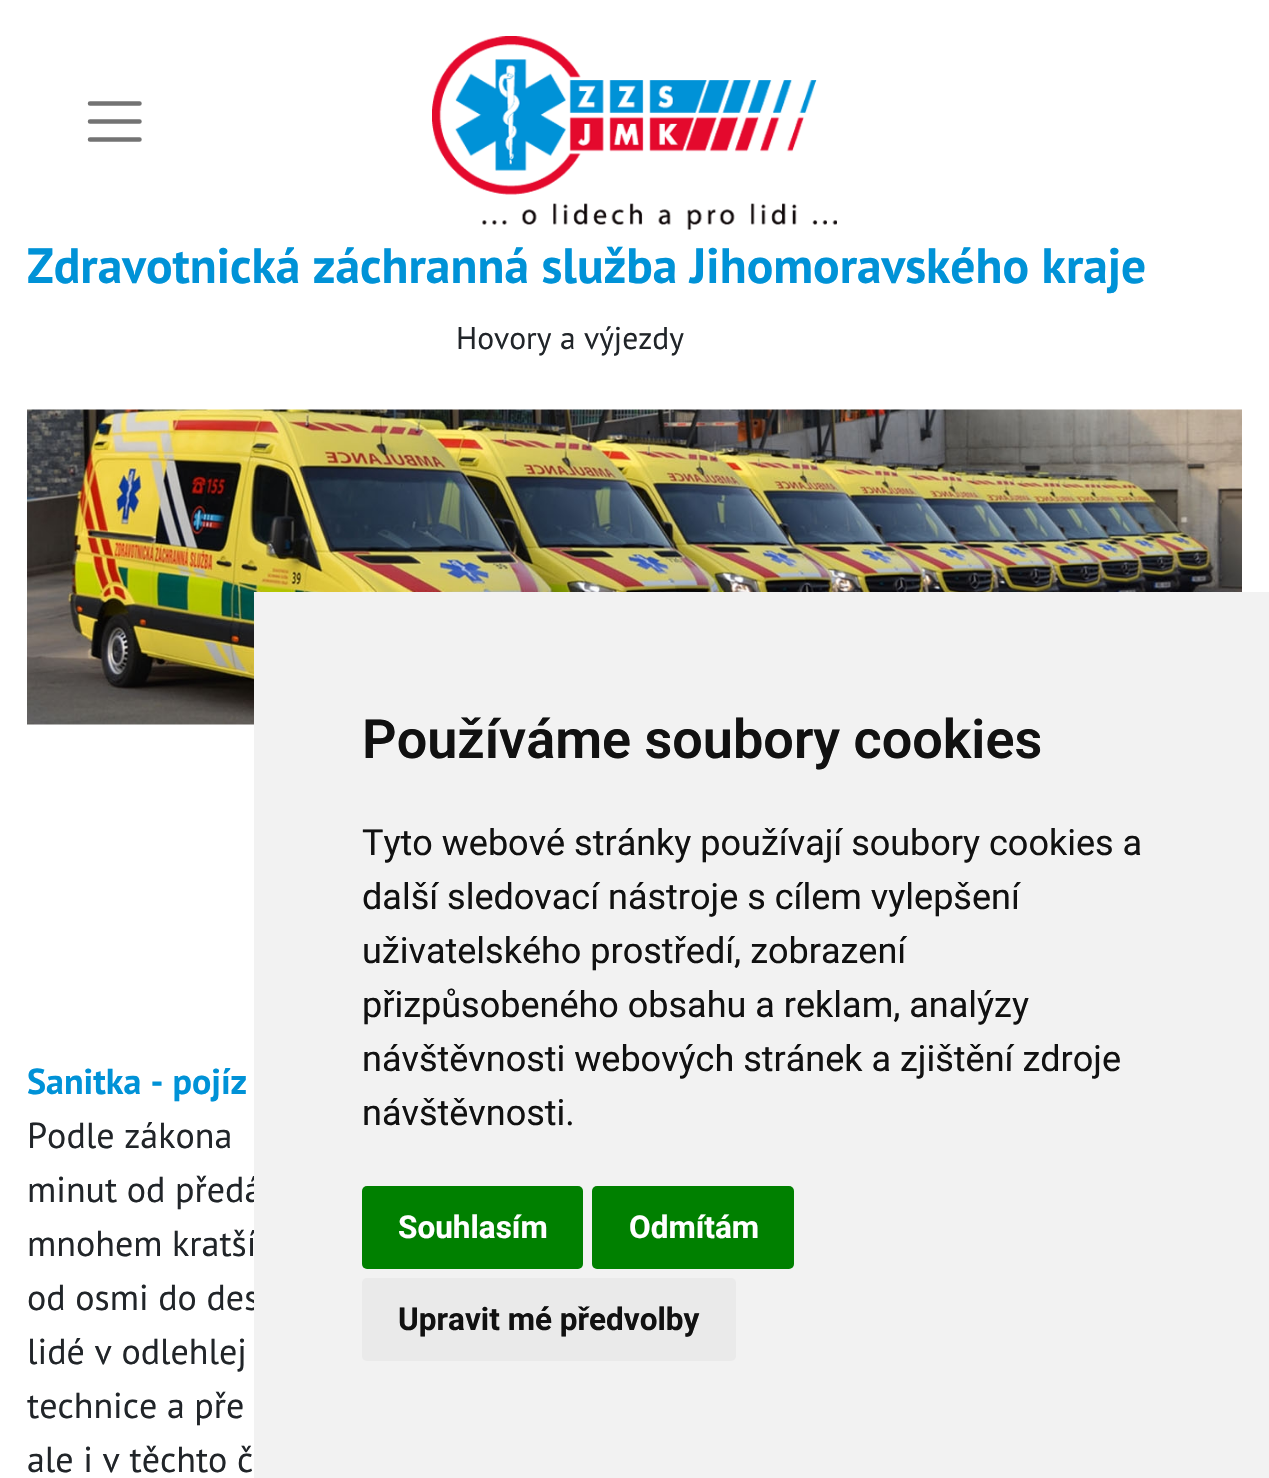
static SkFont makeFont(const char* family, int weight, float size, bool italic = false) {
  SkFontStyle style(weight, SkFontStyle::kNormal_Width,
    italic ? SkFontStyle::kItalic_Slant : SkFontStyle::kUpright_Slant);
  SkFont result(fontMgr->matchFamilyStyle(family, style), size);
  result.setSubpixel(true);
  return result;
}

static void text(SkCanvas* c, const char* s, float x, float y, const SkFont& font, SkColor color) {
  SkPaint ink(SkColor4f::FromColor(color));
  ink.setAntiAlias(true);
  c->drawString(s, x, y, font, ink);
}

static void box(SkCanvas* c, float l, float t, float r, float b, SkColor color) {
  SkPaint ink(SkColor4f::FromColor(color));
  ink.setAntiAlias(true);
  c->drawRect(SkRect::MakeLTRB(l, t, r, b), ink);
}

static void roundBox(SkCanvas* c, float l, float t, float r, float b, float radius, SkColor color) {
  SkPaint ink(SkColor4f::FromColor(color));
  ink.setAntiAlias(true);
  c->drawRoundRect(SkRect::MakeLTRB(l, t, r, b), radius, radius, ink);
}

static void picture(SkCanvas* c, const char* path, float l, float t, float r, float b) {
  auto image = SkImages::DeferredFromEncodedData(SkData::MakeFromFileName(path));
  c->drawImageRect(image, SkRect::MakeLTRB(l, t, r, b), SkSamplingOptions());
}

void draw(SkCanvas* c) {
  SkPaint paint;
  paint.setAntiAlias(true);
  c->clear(0xffffffff);
  picture(c, "img_01.png", 432, 36, 837, 230);
  paint.setStyle(SkPaint::kStroke_Style);
  paint.setStrokeWidth(4.5f);
  paint.setStrokeCap(SkPaint::kRound_Cap);
  paint.setColor(0xff737373);
  c->drawPath(SkPathBuilder().moveTo(90, 103.5f).lineTo(139.5f, 103.5f).moveTo(90, 121.5f).lineTo(139.5f, 121.5f).moveTo(90, 139.5f).lineTo(139.5f, 139.5f).detach(), paint);
  SkFont face1 = makeFont("PT Sans", 700, 49.5f);
  text(c, "Zdravotnická záchranná služba Jihomoravského kraje", 27, 283, face1, 0xff0092d7);
  SkFont face2 = makeFont("PT Sans", 400, 31.5f);
  text(c, "Hovory a výjezdy", 456, 349, face2, 0xff212529);
  picture(c, "img_02.png", 27, 409, 1242, 725);
  SkFont face3 = makeFont("PT Sans", 700, 36);
  text(c, "Sanitka - pojíz", 27, 1094, face3, 0xff0092d7);
  SkFont face4 = makeFont("PT Sans", 400, 36);
  text(c, "Podle zákona", 27, 1148, face4, 0xff212529);
  text(c, "minut od předá", 27, 1202, face4, 0xff212529);
  text(c, "mnohem kratší", 27, 1256, face4, 0xff212529);
  text(c, "od osmi do des", 27, 1310, face4, 0xff212529);
  text(c, "lidé v odlehlej", 27, 1364, face4, 0xff212529);
  text(c, "technice a pře", 27, 1418, face4, 0xff212529);
  text(c, "ale i v těchto č", 27, 1472, face4, 0xff212529);
  box(c, 254, 592, 1269, 1478, 0xfff2f2f2);
  SkFont face5 = makeFont("Roboto", 600, 54);
  text(c, "Používáme soubory cookies", 362, 758, face5, 0xff111111);
  SkFont face6 = makeFont("Roboto", 400, 36);
  text(c, "Tyto webové stránky používají soubory cookies a", 362, 855, face6, 0xff111111);
  text(c, "další sledovací nástroje s cílem vylepšení", 362, 909, face6, 0xff111111);
  text(c, "uživatelského prostředí, zobrazení", 362, 963, face6, 0xff111111);
  text(c, "přizpůsobeného obsahu a reklam, analýzy", 362, 1017, face6, 0xff111111);
  text(c, "návštěvnosti webových stránek a zjištění zdroje", 362, 1071, face6, 0xff111111);
  text(c, "návštěvnosti.", 362, 1125, face6, 0xff111111);
  roundBox(c, 362, 1186, 583, 1269, 5, 0xff008000);
  SkFont face7 = makeFont("Roboto", 700, 31.5f);
  text(c, "Souhlasím", 398, 1238, face7, 0xffffffff);
  roundBox(c, 592, 1186, 794, 1269, 5, 0xff008000);
  text(c, "Odmítám", 629, 1238, face7, 0xffffffff);
  roundBox(c, 362, 1278, 736, 1361, 5, 0xffeaeaea);
  text(c, "Upravit mé předvolby", 398, 1330, face7, 0xff111111);
}
